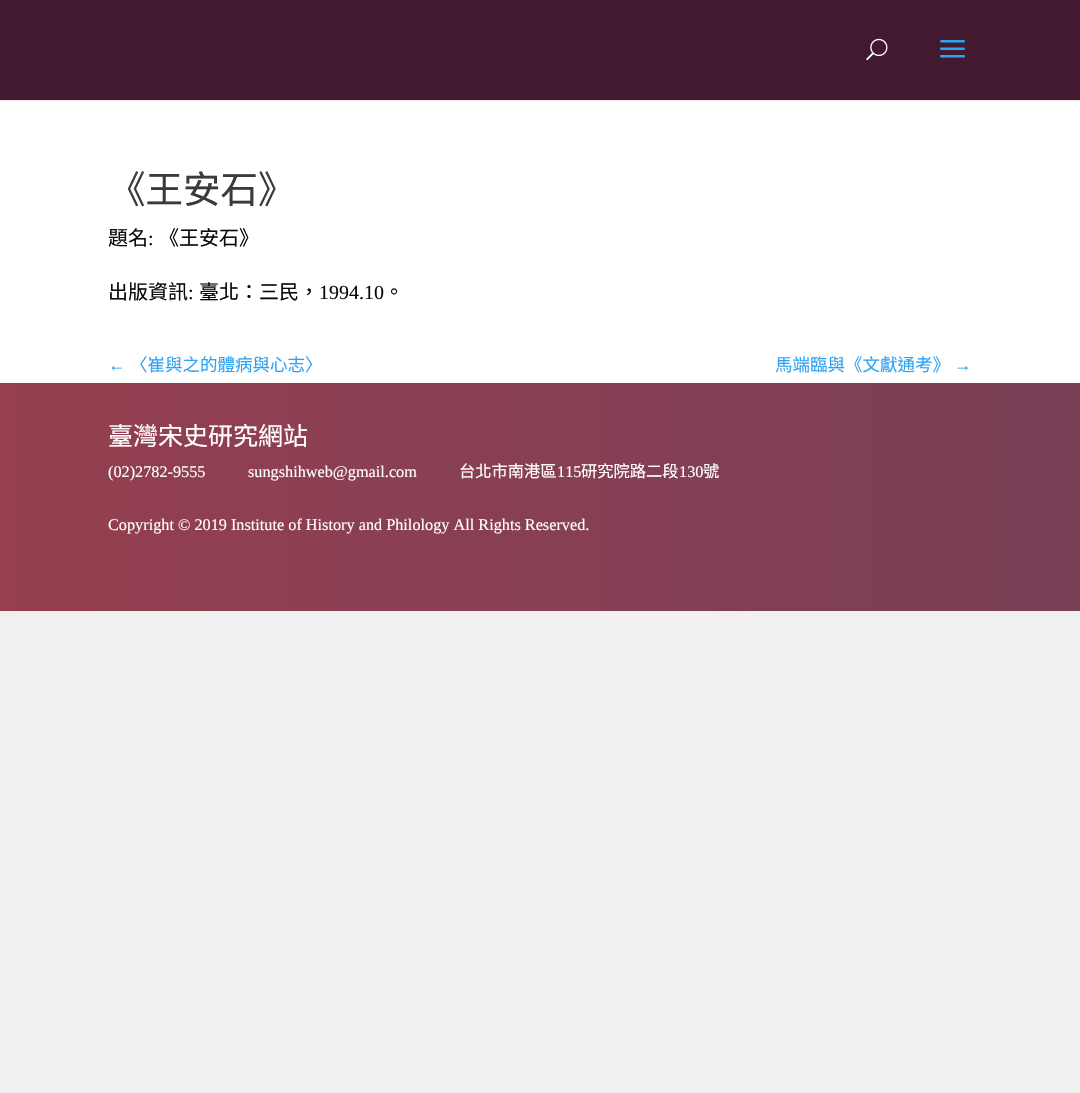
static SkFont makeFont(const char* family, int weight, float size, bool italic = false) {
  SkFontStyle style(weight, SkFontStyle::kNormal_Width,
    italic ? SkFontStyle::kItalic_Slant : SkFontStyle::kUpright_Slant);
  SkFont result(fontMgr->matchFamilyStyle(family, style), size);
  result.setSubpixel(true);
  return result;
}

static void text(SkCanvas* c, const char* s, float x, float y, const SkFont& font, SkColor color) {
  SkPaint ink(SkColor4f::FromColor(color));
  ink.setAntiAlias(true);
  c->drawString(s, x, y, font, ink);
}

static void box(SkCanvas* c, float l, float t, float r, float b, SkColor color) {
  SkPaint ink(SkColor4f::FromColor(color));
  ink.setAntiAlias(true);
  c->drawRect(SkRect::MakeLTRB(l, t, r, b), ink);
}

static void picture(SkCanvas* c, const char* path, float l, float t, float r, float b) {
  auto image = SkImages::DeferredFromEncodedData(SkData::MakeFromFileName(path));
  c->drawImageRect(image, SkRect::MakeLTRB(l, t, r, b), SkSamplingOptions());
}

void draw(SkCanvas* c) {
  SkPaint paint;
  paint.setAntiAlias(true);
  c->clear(0xfff0f0f0);
  box(c, 0, 100, 1080, 101, 0xffe6e6e6);
  box(c, 0, 0, 1080, 100, 0xff42192f);
  picture(c, "img_01.png", 866, 38, 888, 61);
  picture(c, "img_02.png", 940, 40, 965, 58);
  box(c, 0, 101, 1080, 383, 0xffffffff);
  SkFont face1 = makeFont("Noto Sans CJK TC", 400, 37.5f);
  text(c, "《王安石》", 108, 203, face1, 0xff3a3a3a);
  SkFont face2 = makeFont("Noto Sans CJK TC", 400, 20);
  text(c, "題名", 108, 245, face2, 0xff0a0a0a);
  SkFont face3 = makeFont("Liberation Serif", 400, 20);
  text(c, ":", 148, 245, face3, 0xff0a0a0a);
  text(c, "《王安石》", 159, 245, face2, 0xff0a0a0a);
  text(c, "出版資訊", 108, 299, face2, 0xff0a0a0a);
  text(c, ":", 188, 299, face3, 0xff0a0a0a);
  text(c, "臺北：三民，", 199, 299, face2, 0xff0a0a0a);
  text(c, "1994.10", 319, 299, face3, 0xff0a0a0a);
  text(c, "。", 384, 299, face2, 0xff0a0a0a);
  SkFont face4 = makeFont("Liberation Serif", 400, 17.5f);
  text(c, "←", 108, 371, face4, 0xff2ea3f2);
  SkFont face5 = makeFont("Noto Sans CJK TC", 400, 17.5f);
  text(c, "〈崔與之的體病與心志〉", 130, 371, face5, 0xff2ea3f2);
  text(c, "馬端臨與《文獻通考》", 775, 371, face5, 0xff2ea3f2);
  text(c, "→", 954, 371, face4, 0xff2ea3f2);
  {
    const SkColor colors[] = {0xff953f4f, 0xff793f57};
    const float stops[] = {0, 1};
    const SkPoint ends[] = {{0, 497}, {1080, 497}};
    paint.setShader(SkGradientShader::MakeLinear(ends, colors, stops, 2, SkTileMode::kClamp));
    paint.setAlpha(255);
  }
  c->drawRect(SkRect::MakeLTRB(0, 383, 1080, 611), paint);
  SkFont face6 = makeFont("Noto Sans CJK TC", 400, 25);
  text(c, "臺灣宋史研究網站", 108, 445, face6, 0xffffffff);
  SkFont face7 = makeFont("Liberation Serif", 400, 16.25f);
  text(c, "(02)2782-9555", 108, 477, face7, 0xffffffff);
  text(c, "sungshihweb@gmail.com", 248, 477, face7, 0xffffffff);
  SkFont face8 = makeFont("Noto Sans CJK TC", 400, 16.25f);
  text(c, "台北市南港區", 459, 477, face8, 0xffffffff);
  text(c, "115", 557, 477, face7, 0xffffffff);
  text(c, "研究院路二段", 581, 477, face8, 0xffffffff);
  text(c, "130", 679, 477, face7, 0xffffffff);
  text(c, "號", 703, 477, face8, 0xffffffff);
  text(c, "Copyright © 2019 Institute of History and Philology All Rights Reserved.", 108, 530, face7, 0xffffffff);
}
